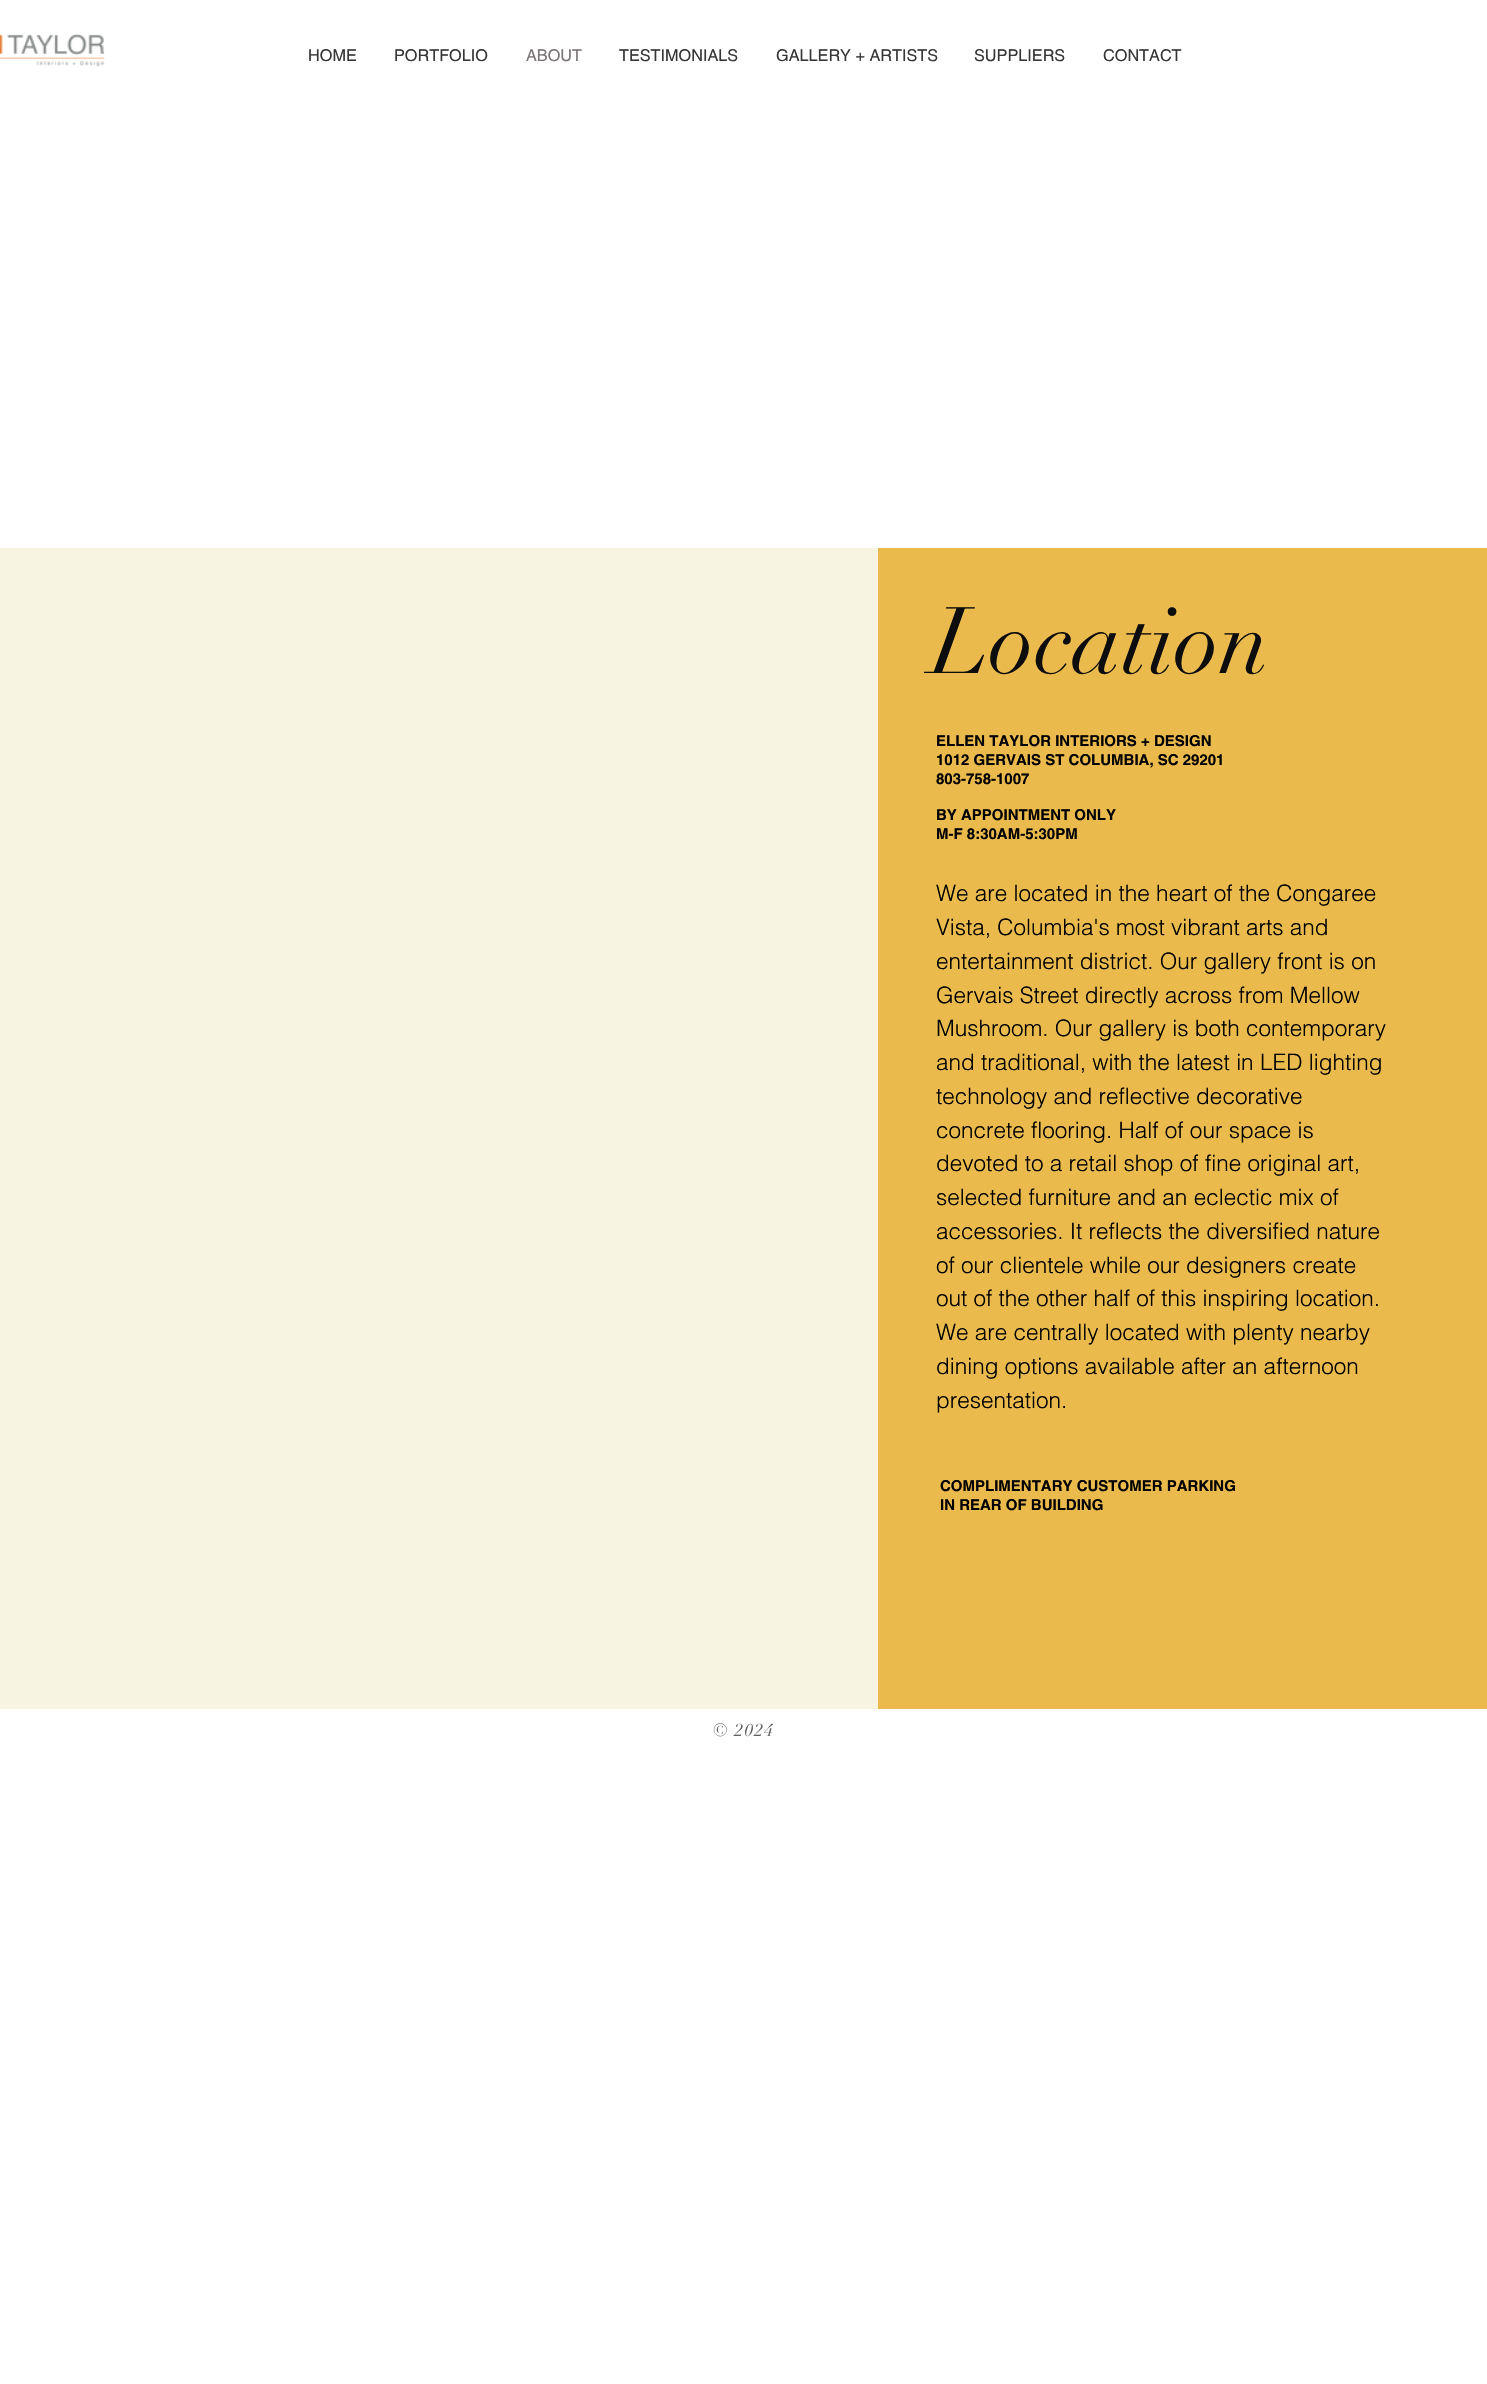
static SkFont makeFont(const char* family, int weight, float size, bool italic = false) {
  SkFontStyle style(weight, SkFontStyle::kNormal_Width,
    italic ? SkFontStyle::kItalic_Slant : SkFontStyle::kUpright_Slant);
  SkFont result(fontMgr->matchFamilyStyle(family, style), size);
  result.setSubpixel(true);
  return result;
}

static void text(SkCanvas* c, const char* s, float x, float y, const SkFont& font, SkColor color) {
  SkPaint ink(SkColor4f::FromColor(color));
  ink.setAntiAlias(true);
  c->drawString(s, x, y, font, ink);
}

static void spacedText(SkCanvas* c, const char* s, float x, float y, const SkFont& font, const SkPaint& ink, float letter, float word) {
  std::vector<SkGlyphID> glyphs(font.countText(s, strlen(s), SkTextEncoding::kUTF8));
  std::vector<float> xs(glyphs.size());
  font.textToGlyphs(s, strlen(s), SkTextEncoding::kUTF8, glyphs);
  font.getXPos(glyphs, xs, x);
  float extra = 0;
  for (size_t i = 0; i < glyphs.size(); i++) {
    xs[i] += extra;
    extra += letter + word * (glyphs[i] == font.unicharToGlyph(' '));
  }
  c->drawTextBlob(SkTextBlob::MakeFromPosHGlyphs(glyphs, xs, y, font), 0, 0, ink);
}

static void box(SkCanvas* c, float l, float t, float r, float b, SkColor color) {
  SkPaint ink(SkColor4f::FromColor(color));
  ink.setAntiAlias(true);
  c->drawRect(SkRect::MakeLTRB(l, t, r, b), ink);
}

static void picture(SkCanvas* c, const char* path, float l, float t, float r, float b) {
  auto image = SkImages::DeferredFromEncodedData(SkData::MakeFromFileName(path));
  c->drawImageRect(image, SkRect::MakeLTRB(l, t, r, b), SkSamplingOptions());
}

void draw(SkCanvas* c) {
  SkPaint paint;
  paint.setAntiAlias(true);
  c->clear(0xffffffff);
  picture(c, "img_01.png", 0, 33, 105, 67);
  SkFont face1 = makeFont("helvetica", 400, 16.25f);
  text(c, "HOME", 308, 61, face1, 0xff363636);
  text(c, "PORTFOLIO", 394, 61, face1, 0xff363636);
  text(c, "ABOUT", 526, 61, face1, 0xff7a7474);
  text(c, "TESTIMONIALS", 619, 61, face1, 0xff363636);
  text(c, "GALLERY + ARTISTS", 776, 61, face1, 0xff363636);
  text(c, "SUPPLIERS", 974, 61, face1, 0xff363636);
  text(c, "CONTACT", 1103, 61, face1, 0xff363636);
  box(c, 0, 548, 878, 1709, 0xfff7f5e1);
  box(c, 878, 548, 1487, 1709, 0xffebba4d);
  SkFont face2 = makeFont("didot", 400, 92.5f);
  text(c, "Location", 932, 673, face2, 0xff0d0d0d);
  SkFont face3 = makeFont("helvetica", 700, 15);
  text(c, "ELLEN TAYLOR INTERIORS + DESIGN", 936, 746, face3, 0xff000000);
  text(c, "1012 GERVAIS ST COLUMBIA, SC 29201", 936, 765, face3, 0xff000000);
  text(c, "803-758-1007", 936, 784, face3, 0xff000000);
  text(c, "BY APPOINTMENT ONLY", 936, 820, face3, 0xff000000);
  text(c, "M-F 8:30AM-5:30PM", 936, 839, face3, 0xff000000);
  SkFont face4 = makeFont("helvetica", 300, 22.5f);
  text(c, "We are located in the heart of the Congaree", 936, 901, face4, 0xff000000);
  text(c, "Vista, Columbia's most vibrant arts and", 936, 935, face4, 0xff000000);
  text(c, "entertainment district. Our gallery front is on", 936, 969, face4, 0xff000000);
  text(c, "Gervais Street directly across from Mellow", 936, 1003, face4, 0xff000000);
  text(c, "Mushroom. Our gallery is both contemporary", 936, 1036, face4, 0xff000000);
  text(c, "and traditional, with the latest in LED lighting", 936, 1070, face4, 0xff000000);
  text(c, "technology and reflective decorative", 936, 1104, face4, 0xff000000);
  text(c, "concrete flooring. Half of our space is", 936, 1138, face4, 0xff000000);
  text(c, "devoted to a retail shop of fine original art,", 936, 1171, face4, 0xff000000);
  text(c, "selected furniture and an eclectic mix of", 936, 1205, face4, 0xff000000);
  text(c, "accessories. It reflects the diversified nature", 936, 1239, face4, 0xff000000);
  text(c, "of our clientele while our designers create", 936, 1273, face4, 0xff000000);
  text(c, "out of the other half of this inspiring location.", 936, 1306, face4, 0xff000000);
  text(c, "We are centrally located with plenty nearby", 936, 1340, face4, 0xff000000);
  text(c, "dining options available after an afternoon", 936, 1374, face4, 0xff000000);
  text(c, "presentation.", 936, 1408, face4, 0xff000000);
  text(c, "COMPLIMENTARY CUSTOMER PARKING", 940, 1491, face3, 0xff000000);
  text(c, "IN REAR OF BUILDING", 940, 1510, face3, 0xff000000);
  SkFont face5 = makeFont("didot", 400, 17.5f);
  paint.setColor(0xff605e5e);
  spacedText(c, "© 2024", 713, 1736, face5, paint, 1.5f, 0);
}
